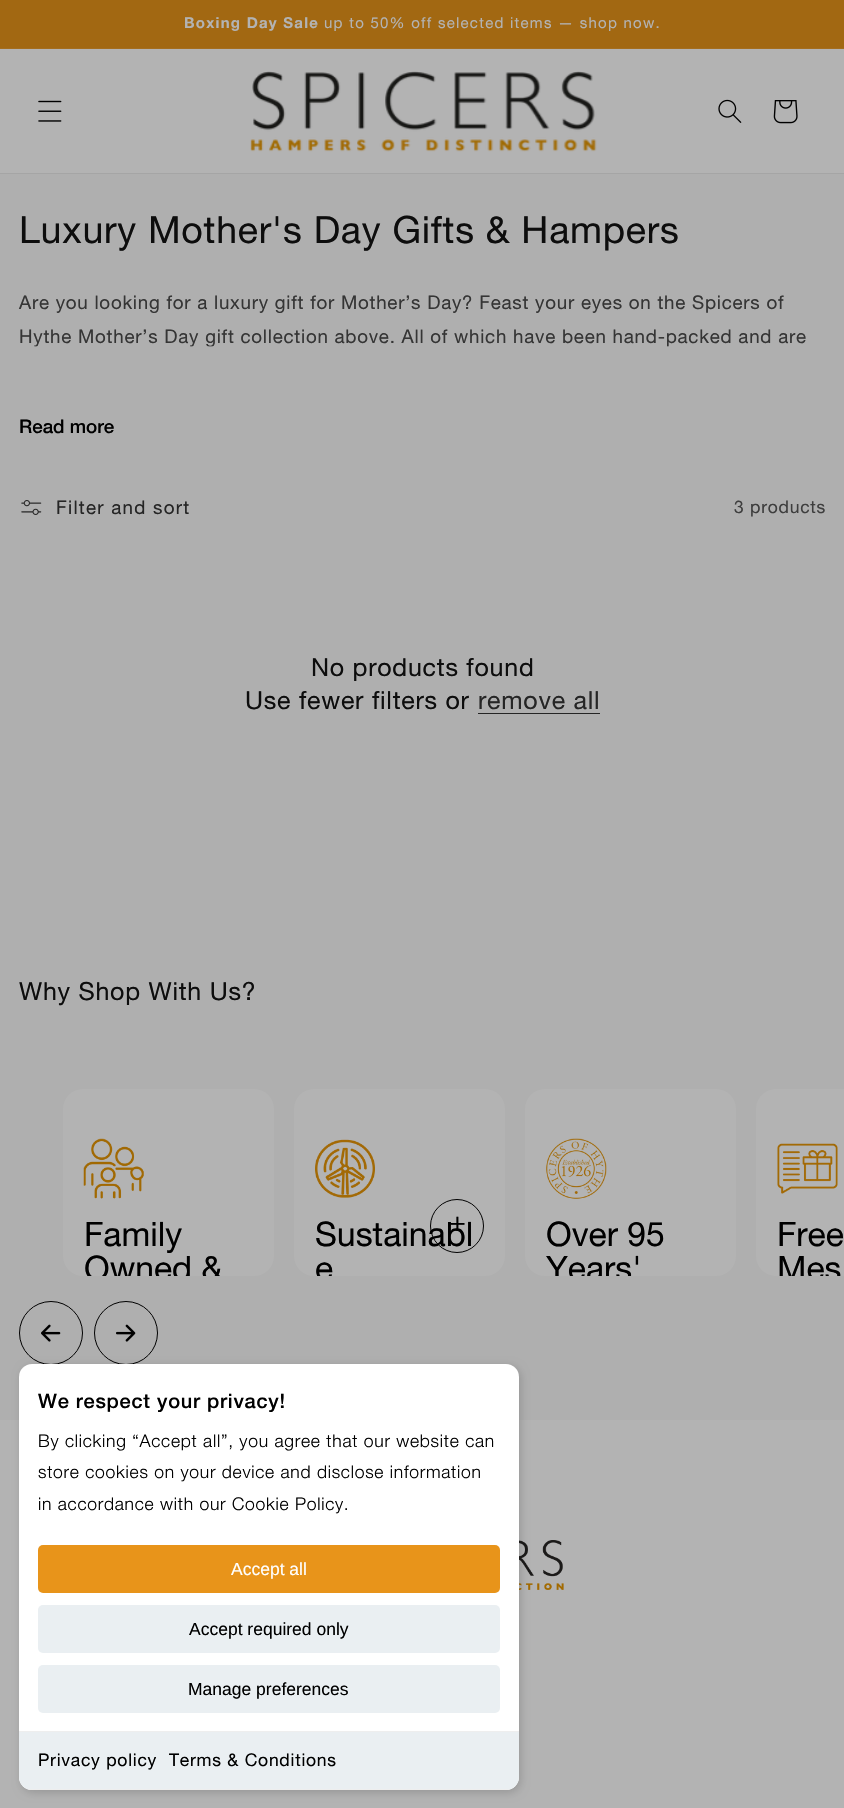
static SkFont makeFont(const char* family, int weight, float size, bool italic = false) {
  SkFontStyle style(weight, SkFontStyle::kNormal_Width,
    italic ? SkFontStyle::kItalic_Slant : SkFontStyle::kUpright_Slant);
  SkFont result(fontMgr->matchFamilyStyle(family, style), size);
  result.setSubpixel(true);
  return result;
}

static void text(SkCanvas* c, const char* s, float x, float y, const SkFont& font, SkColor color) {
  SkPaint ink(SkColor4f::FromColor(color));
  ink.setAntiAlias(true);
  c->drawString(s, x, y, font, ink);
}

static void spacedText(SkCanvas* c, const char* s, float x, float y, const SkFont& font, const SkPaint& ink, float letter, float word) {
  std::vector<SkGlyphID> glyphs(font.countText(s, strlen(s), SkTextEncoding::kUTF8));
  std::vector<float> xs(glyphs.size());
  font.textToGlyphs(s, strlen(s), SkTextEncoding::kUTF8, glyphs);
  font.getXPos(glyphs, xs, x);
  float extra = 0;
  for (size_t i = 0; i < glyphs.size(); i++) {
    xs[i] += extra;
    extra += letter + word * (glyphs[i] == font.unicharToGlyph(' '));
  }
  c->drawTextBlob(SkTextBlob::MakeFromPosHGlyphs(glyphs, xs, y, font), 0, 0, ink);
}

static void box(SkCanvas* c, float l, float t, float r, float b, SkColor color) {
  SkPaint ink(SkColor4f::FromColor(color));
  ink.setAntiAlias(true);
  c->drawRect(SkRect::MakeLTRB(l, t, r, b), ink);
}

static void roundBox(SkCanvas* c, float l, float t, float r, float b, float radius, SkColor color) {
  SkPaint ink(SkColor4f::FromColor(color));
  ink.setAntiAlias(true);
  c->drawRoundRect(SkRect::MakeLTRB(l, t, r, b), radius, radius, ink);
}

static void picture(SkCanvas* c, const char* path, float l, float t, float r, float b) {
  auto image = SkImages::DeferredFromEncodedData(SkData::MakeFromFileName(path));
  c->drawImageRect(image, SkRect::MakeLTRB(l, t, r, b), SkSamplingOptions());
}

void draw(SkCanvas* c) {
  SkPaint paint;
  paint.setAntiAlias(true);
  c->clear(0xffb3b3b3);
  box(c, 0, 0, 844, 48, 0xffa26812);
  box(c, 0, 48, 844, 49, 0xffa46e1f);
  SkFont face1 = makeFont("Helvetica Neue", 700, 15);
  paint.setColor(0xffb3b3b3);
  spacedText(c, "Boxing Day Sale", 184, 28, face1, paint, 1.25f, 0);
  SkFont face2 = makeFont("Helvetica Neue", 400, 15);
  spacedText(c, "up to 50% off selected items — shop now.", 324, 28, face2, paint, 1.25f, 0);
  box(c, 0, 173, 844, 174, 0xffa5a5a5);
  picture(c, "img_01.png", 38, 100, 62, 122);
  picture(c, "img_02.png", 250, 71, 597, 152);
  picture(c, "img_03.png", 718, 99, 742, 123);
  picture(c, "img_04.png", 773, 100, 798, 124);
  box(c, 0, 174, 844, 1420, 0xffafafaf);
  SkFont face3 = makeFont("Helvetica Neue", 400, 37.5f);
  paint.setColor(0xff0d0d0d);
  spacedText(c, "Luxury Mother's Day Gifts & Hampers", 19, 243, face3, paint, 0.75f, 0);
  SkFont face4 = makeFont("Helvetica Neue", 400, 18.75f);
  paint.setColor(0xff353535);
  spacedText(c, "Are you looking for a luxury gift for Mother’s Day? Feast your eyes on the Spicers of", 19, 309, face4, paint, 0.75f, 0);
  spacedText(c, "Hythe Mother’s Day gift collection above. All of which have been hand-packed and are", 19, 343, face4, paint, 0.75f, 0);
  {
    const SkColor colors[] = {0x9cafafaf, 0xffafafaf};
    const float stops[] = {0, 1};
    const SkPoint ends[] = {{423, 346}, {423, 396}};
    paint.setShader(SkGradientShader::MakeLinear(ends, colors, stops, 2, SkTileMode::kClamp));
    paint.setAlpha(255);
  }
  c->drawRect(SkRect::MakeLTRB(34, 346, 669, 347), paint);
  SkFont face5 = makeFont("Helvetica Neue", 500, 18.75f);
  text(c, "Read more", 19, 433, face5, 0xff000000);
  picture(c, "img_05.png", 21, 500, 42, 515);
  paint.setShader(nullptr);
  paint.setColor(0xff252525);
  spacedText(c, "Filter and sort", 56, 514, face4, paint, 1.25f, 0);
  SkFont face6 = makeFont("Helvetica Neue", 400, 17.5f);
  paint.setColor(0xff3e3e3e);
  spacedText(c, "3 products", 734, 513, face6, paint, 0.75f, 0);
  SkFont face7 = makeFont("Helvetica Neue", 400, 25);
  paint.setColor(0xff0d0d0d);
  spacedText(c, "No products found", 311, 676, face7, paint, 0.75f, 0);
  spacedText(c, "Use fewer filters or", 245, 709, face7, paint, 0.75f, 0);
  paint.setColor(0xff252525);
  spacedText(c, "remove all", 478, 709, face7, paint, 0.75f, 0);
  box(c, 478, 713, 600, 714, 0xff252525);
  paint.setColor(0xff0d0d0d);
  spacedText(c, "Why Shop With Us?", 19, 1000, face7, paint, 0.75f, 0);
  roundBox(c, 63, 1089, 274, 1276, 20, 0xffb3b3b3);
  picture(c, "img_06.png", 83, 1138, 144, 1199);
  SkFont face8 = makeFont("Helvetica Neue", 400, 33.75f);
  text(c, "Family", 84, 1246, face8, 0xff000000);
  c->save();
  c->clipPath(SkPathBuilder().moveTo(83, 1089).lineTo(254, 1089).cubicTo(265, 1089, 274, 1098, 274, 1109).lineTo(274, 1256).cubicTo(274, 1267, 265, 1276, 254, 1276).lineTo(83, 1276).cubicTo(72, 1276, 63, 1267, 63, 1256).lineTo(63, 1109).cubicTo(63, 1098, 72, 1089, 83, 1089).close().detach(), true);
  text(c, "Owned &", 84, 1280, face8, 0xff000000);
  c->restore();
  roundBox(c, 294, 1089, 505, 1276, 20, 0xffb3b3b3);
  paint.setStyle(SkPaint::kStroke_Style);
  paint.setStrokeWidth(1);
  paint.setColor(0xff000000);
  c->drawCircle(457, 1226, 26.5f, paint);
  text(c, "Sustainabl", 315, 1246, face8, 0xff000000);
  SkFont face9 = makeFont("Helvetica Neue", 400, 28);
  paint.setStyle(SkPaint::kFill_Style);
  spacedText(c, "+", 449, 1231, face9, paint, 0.75f, 0);
  picture(c, "img_07.png", 315, 1139, 375, 1198);
  c->save();
  c->clipPath(SkPathBuilder().moveTo(314, 1089).lineTo(485, 1089).cubicTo(496, 1089, 505, 1098, 505, 1109).lineTo(505, 1256).cubicTo(505, 1267, 496, 1276, 485, 1276).lineTo(314, 1276).cubicTo(303, 1276, 294, 1267, 294, 1256).lineTo(294, 1109).cubicTo(294, 1098, 303, 1089, 314, 1089).close().detach(), true);
  text(c, "e", 315, 1280, face8, 0xff000000);
  c->restore();
  roundBox(c, 525, 1089, 736, 1276, 20, 0xffb3b3b3);
  picture(c, "img_08.png", 546, 1138, 607, 1199);
  text(c, "Over 95", 546, 1246, face8, 0xff000000);
  c->save();
  c->clipPath(SkPathBuilder().moveTo(545, 1089).lineTo(716, 1089).cubicTo(727, 1089, 736, 1098, 736, 1109).lineTo(736, 1256).cubicTo(736, 1267, 727, 1276, 716, 1276).lineTo(545, 1276).cubicTo(534, 1276, 525, 1267, 525, 1256).lineTo(525, 1109).cubicTo(525, 1098, 534, 1089, 545, 1089).close().detach(), true);
  text(c, "Years'", 546, 1280, face8, 0xff000000);
  c->restore();
  paint.setColor(0xffb3b3b3);
  c->drawPath(SkPathBuilder().moveTo(776, 1089).lineTo(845, 1089).lineTo(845, 1276).lineTo(776, 1276).cubicTo(765, 1276, 756, 1267, 756, 1256).lineTo(756, 1109).cubicTo(756, 1098, 765, 1089, 776, 1089).close().detach(), paint);
  picture(c, "img_09.png", 777, 1143, 838, 1194);
  text(c, "Free", 777, 1246, face8, 0xff000000);
  c->save();
  c->clipPath(SkPathBuilder().moveTo(776, 1089).lineTo(948, 1089).cubicTo(959, 1089, 968, 1098, 968, 1109).lineTo(968, 1256).cubicTo(968, 1267, 959, 1276, 948, 1276).lineTo(776, 1276).cubicTo(765, 1276, 756, 1267, 756, 1256).lineTo(756, 1109).cubicTo(756, 1098, 765, 1089, 776, 1089).close().detach(), true);
  text(c, "Mes", 777, 1280, face8, 0xff000000);
  c->restore();
  paint.setStyle(SkPaint::kStroke_Style);
  paint.setColor(0xff000000);
  c->drawCircle(51, 1333, 31.5f, paint);
  picture(c, "img_10.png", 41, 1324, 61, 1342);
  c->drawCircle(126, 1333, 31.5f, paint);
  picture(c, "img_11.png", 116, 1324, 136, 1342);
  picture(c, "img_12.png", 519, 1540, 564, 1590);
  paint.setStyle(SkPaint::kFill_Style);
  paint.setColor(0x26000000);
  paint.setMaskFilter(SkMaskFilter::MakeBlur(kNormal_SkBlurStyle, 4));
  c->drawRoundRect(SkRect::MakeLTRB(21, 1366, 521, 1793), 13, 13, paint);
  paint.setMaskFilter(nullptr);
  roundBox(c, 19, 1364, 519, 1790, 13, 0xffffffff);
  SkFont face10 = makeFont("Helvetica Neue", 500, 20);
  paint.setColor(0xff000000);
  spacedText(c, "We respect your privacy!", 38, 1408, face10, paint, 0.75f, 0);
  SkFont face11 = makeFont("Helvetica Neue", 300, 17.5f);
  spacedText(c, "By clicking “Accept all”, you agree that our website can", 38, 1447, face11, paint, 0.75f, 0);
  spacedText(c, "store cookies on your device and disclose information", 38, 1478, face11, paint, 0.75f, 0);
  spacedText(c, "in accordance with our Cookie Policy.", 38, 1510, face11, paint, 0.75f, 0);
  roundBox(c, 38, 1545, 500, 1593, 5, 0xffe8941a);
  SkFont face12 = makeFont("Liberation Sans", 400, 17.5f);
  text(c, "Accept all", 231, 1575, face12, 0xffffffff);
  roundBox(c, 38, 1605, 500, 1653, 5, 0xffeaeff2);
  text(c, "Accept required only", 189, 1635, face12, 0xff000000);
  roundBox(c, 38, 1665, 500, 1713, 5, 0xffeaeff2);
  text(c, "Manage preferences", 188, 1695, face12, 0xff000000);
  paint.setColor(0xffeaeff2);
  c->drawPath(SkPathBuilder().moveTo(19, 1731).lineTo(519, 1731).lineTo(519, 1777).cubicTo(519, 1784, 513, 1790, 506, 1790).lineTo(32, 1790).cubicTo(25, 1790, 19, 1784, 19, 1777).close().detach(), paint);
  box(c, 19, 1731, 519, 1732, 0xffeeeeee);
  c->save();
  c->clipPath(SkPathBuilder().moveTo(32, 1364).lineTo(506, 1364).cubicTo(513, 1364, 519, 1370, 519, 1377).lineTo(519, 1777).cubicTo(519, 1784, 513, 1790, 506, 1790).lineTo(32, 1790).cubicTo(25, 1790, 19, 1784, 19, 1777).lineTo(19, 1377).cubicTo(19, 1370, 25, 1364, 32, 1364).close().detach(), true);
  box(c, 19, 1789, 519, 1790, 0xffeeeeee);
  c->restore();
  paint.setColor(0xff000000);
  spacedText(c, "Privacy policy", 38, 1766, face6, paint, 0.75f, 0);
  spacedText(c, "Terms & Conditions", 169, 1766, face6, paint, 0.75f, 0);
}
